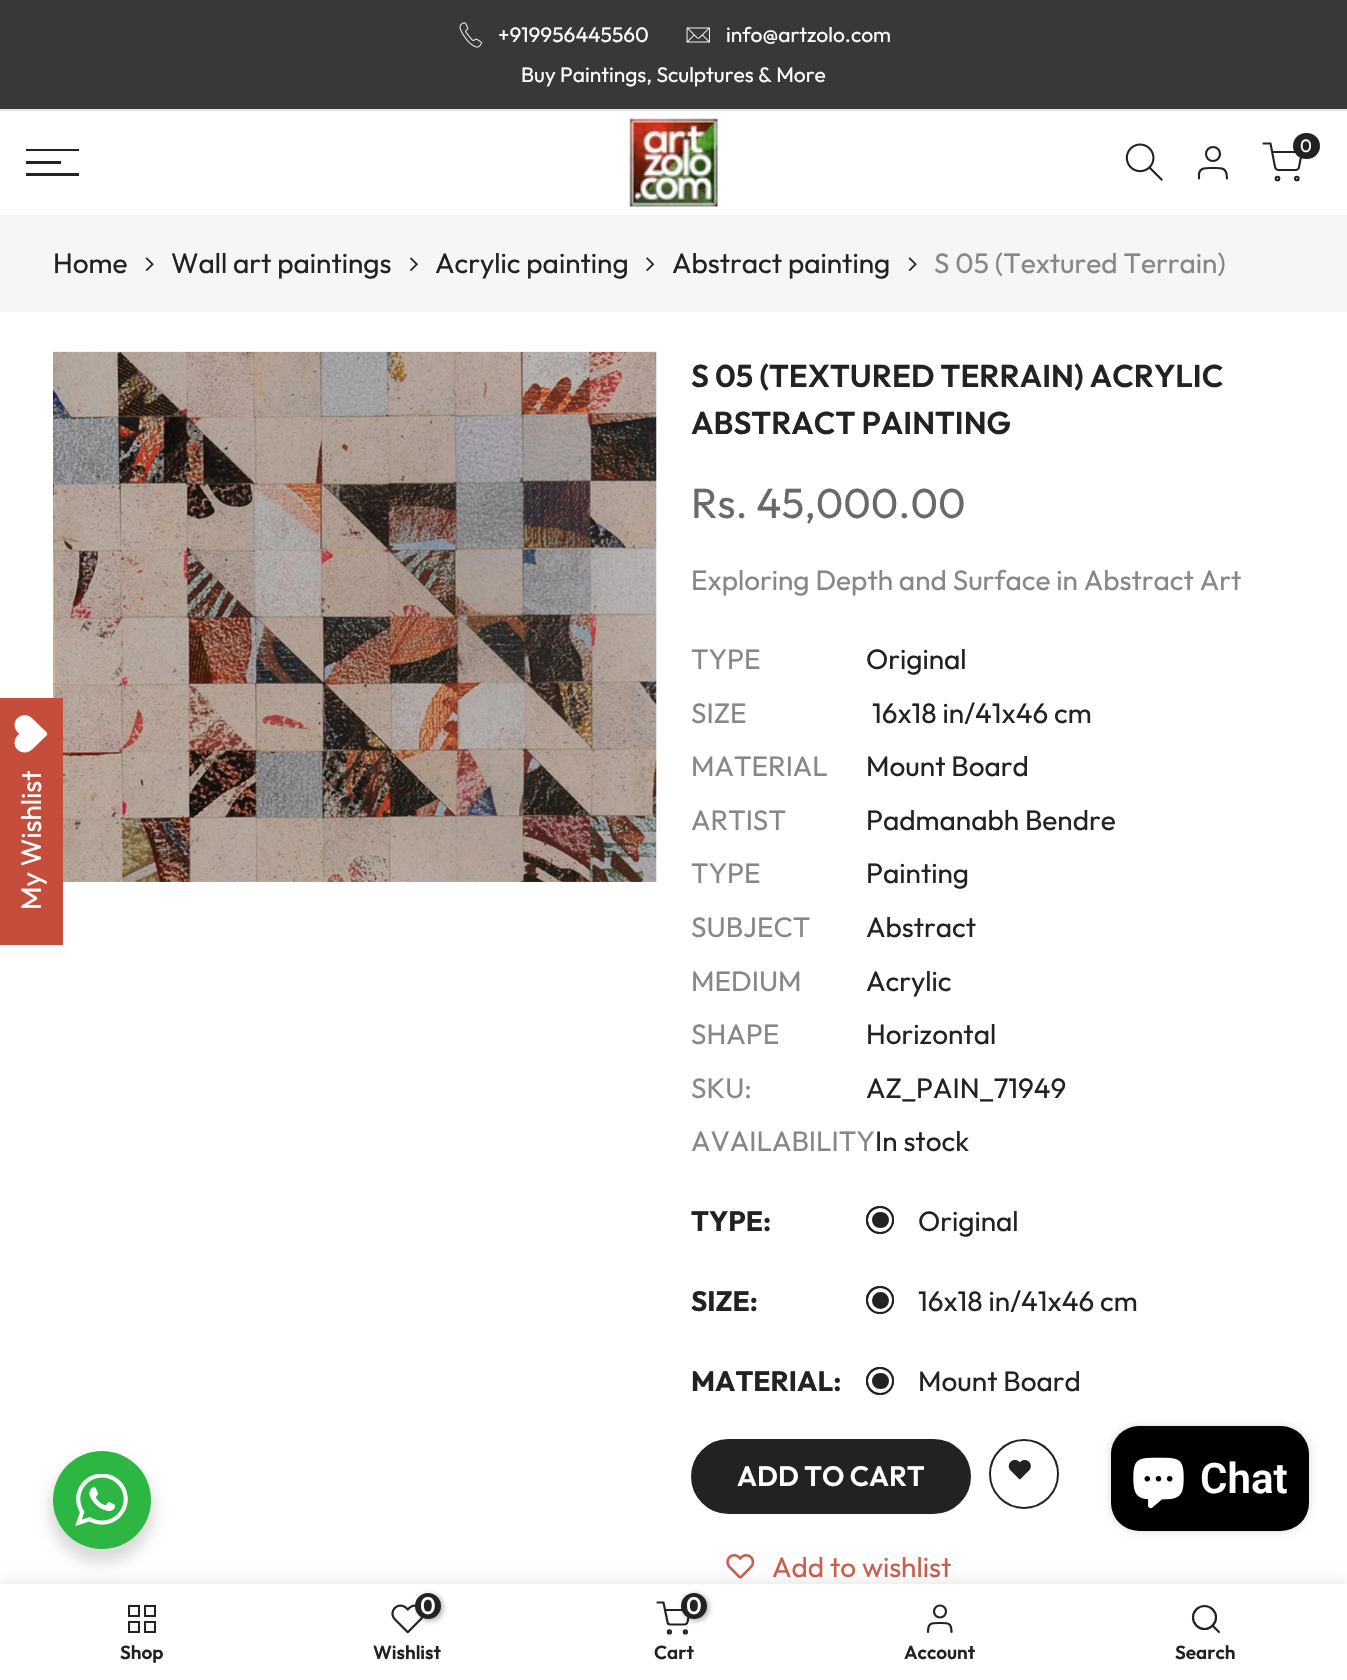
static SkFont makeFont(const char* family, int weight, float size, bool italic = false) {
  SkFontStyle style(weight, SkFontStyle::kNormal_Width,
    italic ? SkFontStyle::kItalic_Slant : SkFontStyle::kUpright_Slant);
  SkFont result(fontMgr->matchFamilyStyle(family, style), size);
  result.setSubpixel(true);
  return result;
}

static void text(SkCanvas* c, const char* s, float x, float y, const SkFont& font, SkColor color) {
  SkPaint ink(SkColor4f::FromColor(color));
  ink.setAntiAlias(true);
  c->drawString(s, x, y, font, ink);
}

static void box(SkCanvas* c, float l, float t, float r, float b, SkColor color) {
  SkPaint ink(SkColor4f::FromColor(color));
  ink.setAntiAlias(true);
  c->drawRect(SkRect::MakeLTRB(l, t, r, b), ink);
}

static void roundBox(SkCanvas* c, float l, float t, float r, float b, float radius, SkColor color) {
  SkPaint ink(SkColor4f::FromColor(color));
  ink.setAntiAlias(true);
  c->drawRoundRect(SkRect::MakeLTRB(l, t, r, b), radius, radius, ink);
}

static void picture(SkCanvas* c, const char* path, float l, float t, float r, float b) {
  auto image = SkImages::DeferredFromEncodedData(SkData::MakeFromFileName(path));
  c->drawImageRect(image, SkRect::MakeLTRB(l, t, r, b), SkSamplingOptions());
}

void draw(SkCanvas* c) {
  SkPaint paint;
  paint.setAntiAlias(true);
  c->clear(0xffffffff);
  box(c, 0, 0, 1347, 109, 0xff383838);
  box(c, 0, 109, 1347, 111, 0xffe6e6e6);
  picture(c, "img_01.png", 459, 22, 482, 48);
  SkFont face1 = makeFont("Outfit", 400, 21);
  text(c, "+919956445560", 498, 42, face1, 0xffffffff);
  picture(c, "img_02.png", 686, 27, 710, 43);
  text(c, "info@artzolo.com", 726, 42, face1, 0xffffffff);
  text(c, "Buy Paintings, Sculptures & More", 521, 82, face1, 0xffffffff);
  box(c, 630, 119, 718, 207, 0xfff5f5f5);
  picture(c, "img_03.png", 629, 118, 718, 207);
  picture(c, "img_04.png", 1125, 143, 1163, 181);
  paint.setStyle(SkPaint::kStroke_Style);
  paint.setStrokeWidth(2.1f);
  paint.setStrokeCap(SkPaint::kRound_Cap);
  paint.setStrokeJoin(SkPaint::kRound_Join);
  paint.setColor(0xff222222);
  c->drawPath(SkPathBuilder().moveTo(1227, 178.5f).lineTo(1226.5f, 173.5f).cubicTo(1225, 167, 1218, 168, 1213, 168).cubicTo(1207.5f, 168, 1200.5f, 167, 1199, 173.5f).lineTo(1199, 178.5f).detach(), paint);
  paint.setStrokeCap(SkPaint::kButt_Cap);
  paint.setStrokeJoin(SkPaint::kMiter_Join);
  c->drawCircle(1213, 154, 7, paint);
  c->drawCircle(1277.5f, 178.5f, 1.8f, paint);
  c->drawCircle(1296.8f, 178.5f, 1.8f, paint);
  paint.setStrokeCap(SkPaint::kRound_Cap);
  paint.setStrokeJoin(SkPaint::kRound_Join);
  c->drawPath(SkPathBuilder().moveTo(1263.5f, 143.5f).lineTo(1270.5f, 143.5f).lineTo(1275, 167).cubicTo(1275.5f, 168.5f, 1277, 170, 1278.5f, 170).lineTo(1295.5f, 170).cubicTo(1297.5f, 170, 1299, 168.5f, 1299, 167).lineTo(1302, 152).lineTo(1272, 152).detach(), paint);
  roundBox(c, 1293, 133, 1320, 159, 13, 0xff222222);
  SkFont face2 = makeFont("Outfit", 400, 18);
  text(c, "0", 1300, 152, face2, 0xffffffff);
  box(c, 26, 149, 79, 151, 0xff222222);
  box(c, 26, 161, 61, 164, 0xff222222);
  box(c, 26, 173, 79, 176, 0xff222222);
  picture(c, "img_09.png", 53, 351, 657, 882);
  box(c, 0, 698, 63, 945, 0xffc44d3b);
  picture(c, "img_05.png", 14, 715, 48, 753);
  SkFont face3 = makeFont("Outfit", 400, 28);
  c->save();
  c->rotate(-90, 41, 910);
  text(c, "My Wishlist", 41, 910, face3, 0xffffffff);
  c->restore();
  box(c, 0, 215, 1347, 312, 0xfff6f6f8);
  text(c, "Home", 53, 273, face3, 0xff222222);
  picture(c, "img_06.png", 145, 257, 154, 271);
  text(c, "Wall art paintings", 171, 273, face3, 0xff222222);
  picture(c, "img_07.png", 410, 257, 418, 271);
  text(c, "Acrylic painting", 435, 273, face3, 0xff222222);
  picture(c, "img_08.png", 646, 257, 655, 271);
  text(c, "Abstract painting", 672, 273, face3, 0xff222222);
  picture(c, "img_06.png", 908, 257, 917, 271);
  text(c, "S 05 (Textured Terrain)", 934, 273, face3, 0xff878787);
  SkFont face4 = makeFont("Outfit", 600, 31.5f);
  text(c, "S 05 (TEXTURED TERRAIN) ACRYLIC", 691, 387, face4, 0xff222222);
  text(c, "ABSTRACT PAINTING", 691, 434, face4, 0xff222222);
  SkFont face5 = makeFont("Outfit", 400, 42);
  text(c, "Rs. 45,000.00", 691, 518, face5, 0xff696969);
  text(c, "Exploring Depth and Surface in Abstract Art", 691, 590, face3, 0xff878787);
  text(c, "TYPE", 691, 669, face3, 0xff878787);
  text(c, "Original", 866, 669, face3, 0xff222222);
  text(c, "SIZE", 691, 723, face3, 0xff878787);
  text(c, "16x18 in/41x46 cm", 872, 723, face3, 0xff222222);
  text(c, "MATERIAL", 691, 776, face3, 0xff878787);
  text(c, "Mount Board", 866, 776, face3, 0xff222222);
  text(c, "ARTIST", 691, 830, face3, 0xff878787);
  text(c, "Padmanabh Bendre", 866, 830, face3, 0xff222222);
  text(c, "TYPE", 691, 883, face3, 0xff878787);
  text(c, "Painting", 866, 883, face3, 0xff222222);
  text(c, "SUBJECT", 691, 937, face3, 0xff878787);
  text(c, "Abstract", 866, 937, face3, 0xff222222);
  text(c, "MEDIUM", 691, 991, face3, 0xff878787);
  text(c, "Acrylic", 866, 991, face3, 0xff222222);
  text(c, "SHAPE", 691, 1044, face3, 0xff878787);
  text(c, "Horizontal", 866, 1044, face3, 0xff222222);
  text(c, "SKU:", 691, 1098, face3, 0xff878787);
  text(c, "AZ_PAIN_71949", 866, 1098, face3, 0xff222222);
  text(c, "AVAILABILITY", 691, 1151, face3, 0xff878787);
  text(c, "In stock", 875, 1151, face3, 0xff222222);
  SkFont face6 = makeFont("Outfit", 700, 28);
  text(c, "TYPE:", 691, 1231, face6, 0xff222222);
  paint.setStyle(SkPaint::kFill_Style);
  c->drawCircle(880, 1220, 14, paint);
  paint.setStyle(SkPaint::kStroke_Style);
  paint.setStrokeWidth(4);
  paint.setStrokeCap(SkPaint::kButt_Cap);
  paint.setStrokeJoin(SkPaint::kMiter_Join);
  paint.setColor(0xffffffff);
  c->drawRoundRect(SkRect::MakeLTRB(870, 1210, 891, 1230), 10, 10, paint);
  paint.setStrokeWidth(2);
  paint.setColor(0xff222222);
  c->drawCircle(880, 1220, 13, paint);
  text(c, "Original", 918, 1231, face3, 0xff222222);
  text(c, "SIZE:", 691, 1311, face6, 0xff222222);
  paint.setStyle(SkPaint::kFill_Style);
  c->drawCircle(880, 1300, 14, paint);
  paint.setStyle(SkPaint::kStroke_Style);
  paint.setStrokeWidth(4);
  paint.setColor(0xffffffff);
  c->drawCircle(880.5f, 1300.5f, 10.5f, paint);
  paint.setStrokeWidth(2);
  paint.setColor(0xff222222);
  c->drawCircle(880, 1300, 13, paint);
  text(c, "16x18 in/41x46 cm", 918, 1311, face3, 0xff222222);
  text(c, "MATERIAL:", 691, 1391, face6, 0xff222222);
  paint.setStyle(SkPaint::kFill_Style);
  c->drawCircle(880, 1381, 14, paint);
  paint.setStyle(SkPaint::kStroke_Style);
  paint.setStrokeWidth(4);
  paint.setColor(0xffffffff);
  c->drawRoundRect(SkRect::MakeLTRB(870, 1371, 891, 1391), 10, 10, paint);
  paint.setStrokeWidth(2);
  paint.setColor(0xff222222);
  c->drawCircle(880, 1381, 13, paint);
  text(c, "Mount Board", 918, 1391, face3, 0xff222222);
  paint.setStyle(SkPaint::kFill_Style);
  c->drawRoundRect(SkRect::MakeLTRB(693, 1441, 969, 1512), 35.5f, 35.5f, paint);
  paint.setStyle(SkPaint::kStroke_Style);
  paint.setStrokeWidth(4);
  c->drawRoundRect(SkRect::MakeLTRB(693, 1441, 969, 1512), 35.5f, 35.5f, paint);
  SkFont face7 = makeFont("Outfit", 600, 28);
  text(c, "ADD TO CART", 737, 1486, face7, 0xffffffff);
  paint.setStrokeWidth(2);
  c->drawCircle(1024, 1474, 34, paint);
  picture(c, "img_10.png", 1008, 1460, 1031, 1480);
  picture(c, "img_11.png", 726, 1554, 755, 1579);
  text(c, "Add to wishlist", 772, 1577, face3, 0xffca5f4f);
  paint.setStyle(SkPaint::kFill_Style);
  paint.setColor(0x1f000000);
  paint.setMaskFilter(SkMaskFilter::MakeBlur(kNormal_SkBlurStyle, 8));
  c->drawRect(SkRect::MakeLTRB(0, 1584, 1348, 1680), paint);
  paint.setMaskFilter(nullptr);
  box(c, 0, 1584, 1347, 1680, 0xffffffff);
  paint.setColor(0x24000000);
  paint.setMaskFilter(SkMaskFilter::MakeBlur(kNormal_SkBlurStyle, 7));
  c->drawRoundRect(SkRect::MakeLTRB(49, 1458, 154, 1563), 52.5f, 52.5f, paint);
  paint.setMaskFilter(nullptr);
  paint.setColor(0xff2db742);
  c->drawCircle(102, 1500, 49, paint);
  picture(c, "img_12.png", 75, 1474, 128, 1526);
  paint.setColor(0x26000000);
  paint.setMaskFilter(SkMaskFilter::MakeBlur(kNormal_SkBlurStyle, 4.5f));
  c->drawRoundRect(SkRect::MakeLTRB(1111, 1426, 1309, 1531), 28, 28, paint);
  paint.setMaskFilter(nullptr);
  roundBox(c, 1111, 1426, 1309, 1531, 28, 0xff000000);
  picture(c, "img_13.png", 1133, 1457, 1184, 1509);
  SkFont face8 = makeFont("Roboto", 600, 42);
  text(c, "Chat", 1200, 1493, face8, 0xffffffff);
  paint.setStyle(SkPaint::kStroke_Style);
  paint.setColor(0xff222222);
  c->drawRect(SkRect::MakeLTRB(129, 1606, 139, 1616), paint);
  c->drawRect(SkRect::MakeLTRB(145, 1606, 155, 1616), paint);
  c->drawRect(SkRect::MakeLTRB(145, 1622, 155, 1632), paint);
  c->drawRect(SkRect::MakeLTRB(129, 1622, 139, 1632), paint);
  SkFont face9 = makeFont("Outfit", 600, 19);
  text(c, "Shop", 120, 1659, face9, 0xff222222);
  picture(c, "img_14.png", 391, 1604, 423, 1634);
  paint.setStyle(SkPaint::kFill_Style);
  paint.setColor(0x4d000000);
  paint.setMaskFilter(SkMaskFilter::MakeBlur(kNormal_SkBlurStyle, 2.5f));
  c->drawRoundRect(SkRect::MakeLTRB(417, 1594, 443, 1621), 13, 13, paint);
  paint.setMaskFilter(nullptr);
  paint.setColor(0xff222222);
  c->drawCircle(428, 1606, 13, paint);
  SkFont face10 = makeFont("Outfit", 500, 24);
  text(c, "0", 420, 1614, face10, 0xffffffff);
  text(c, "Wishlist", 373, 1659, face9, 0xff222222);
  paint.setStyle(SkPaint::kStroke_Style);
  paint.setStrokeWidth(2.2f);
  c->drawCircle(669.4f, 1631.9f, 1.5f, paint);
  c->drawCircle(685.4f, 1631.9f, 1.5f, paint);
  paint.setStrokeCap(SkPaint::kRound_Cap);
  paint.setStrokeJoin(SkPaint::kRound_Join);
  c->drawPath(SkPathBuilder().moveTo(657.5f, 1602.5f).lineTo(663.5f, 1602.5f).lineTo(667.5f, 1622).cubicTo(667.5f, 1623.5f, 669, 1624.5f, 670.5f, 1624.5f).lineTo(684.5f, 1624.5f).cubicTo(686, 1624.5f, 687, 1623.5f, 687.5f, 1622).lineTo(690, 1610).lineTo(665, 1610).detach(), paint);
  paint.setStyle(SkPaint::kFill_Style);
  paint.setColor(0x4d000000);
  paint.setMaskFilter(SkMaskFilter::MakeBlur(kNormal_SkBlurStyle, 2.5f));
  c->drawRoundRect(SkRect::MakeLTRB(683, 1594, 709, 1621), 13, 13, paint);
  paint.setMaskFilter(nullptr);
  paint.setColor(0xff222222);
  c->drawCircle(694, 1606, 13, paint);
  text(c, "0", 686, 1614, face10, 0xffffffff);
  text(c, "Cart", 654, 1659, face9, 0xff222222);
  paint.setStyle(SkPaint::kStroke_Style);
  c->drawPath(SkPathBuilder().moveTo(951.5f, 1632).cubicTo(951.5f, 1622.5f, 948, 1623, 940, 1623).cubicTo(931.5f, 1623, 928, 1622.5f, 928, 1632).detach(), paint);
  paint.setStrokeCap(SkPaint::kButt_Cap);
  paint.setStrokeJoin(SkPaint::kMiter_Join);
  c->drawCircle(940, 1611.5f, 6, paint);
  text(c, "Account", 904, 1659, face9, 0xff222222);
  c->drawCircle(1204.5f, 1617.5f, 11.5f, paint);
  paint.setStrokeCap(SkPaint::kRound_Cap);
  paint.setStrokeJoin(SkPaint::kRound_Join);
  c->drawPath(SkPathBuilder().moveTo(1219, 1632).lineTo(1212.5f, 1625.5f).detach(), paint);
  text(c, "Search", 1175, 1659, face9, 0xff222222);
}
